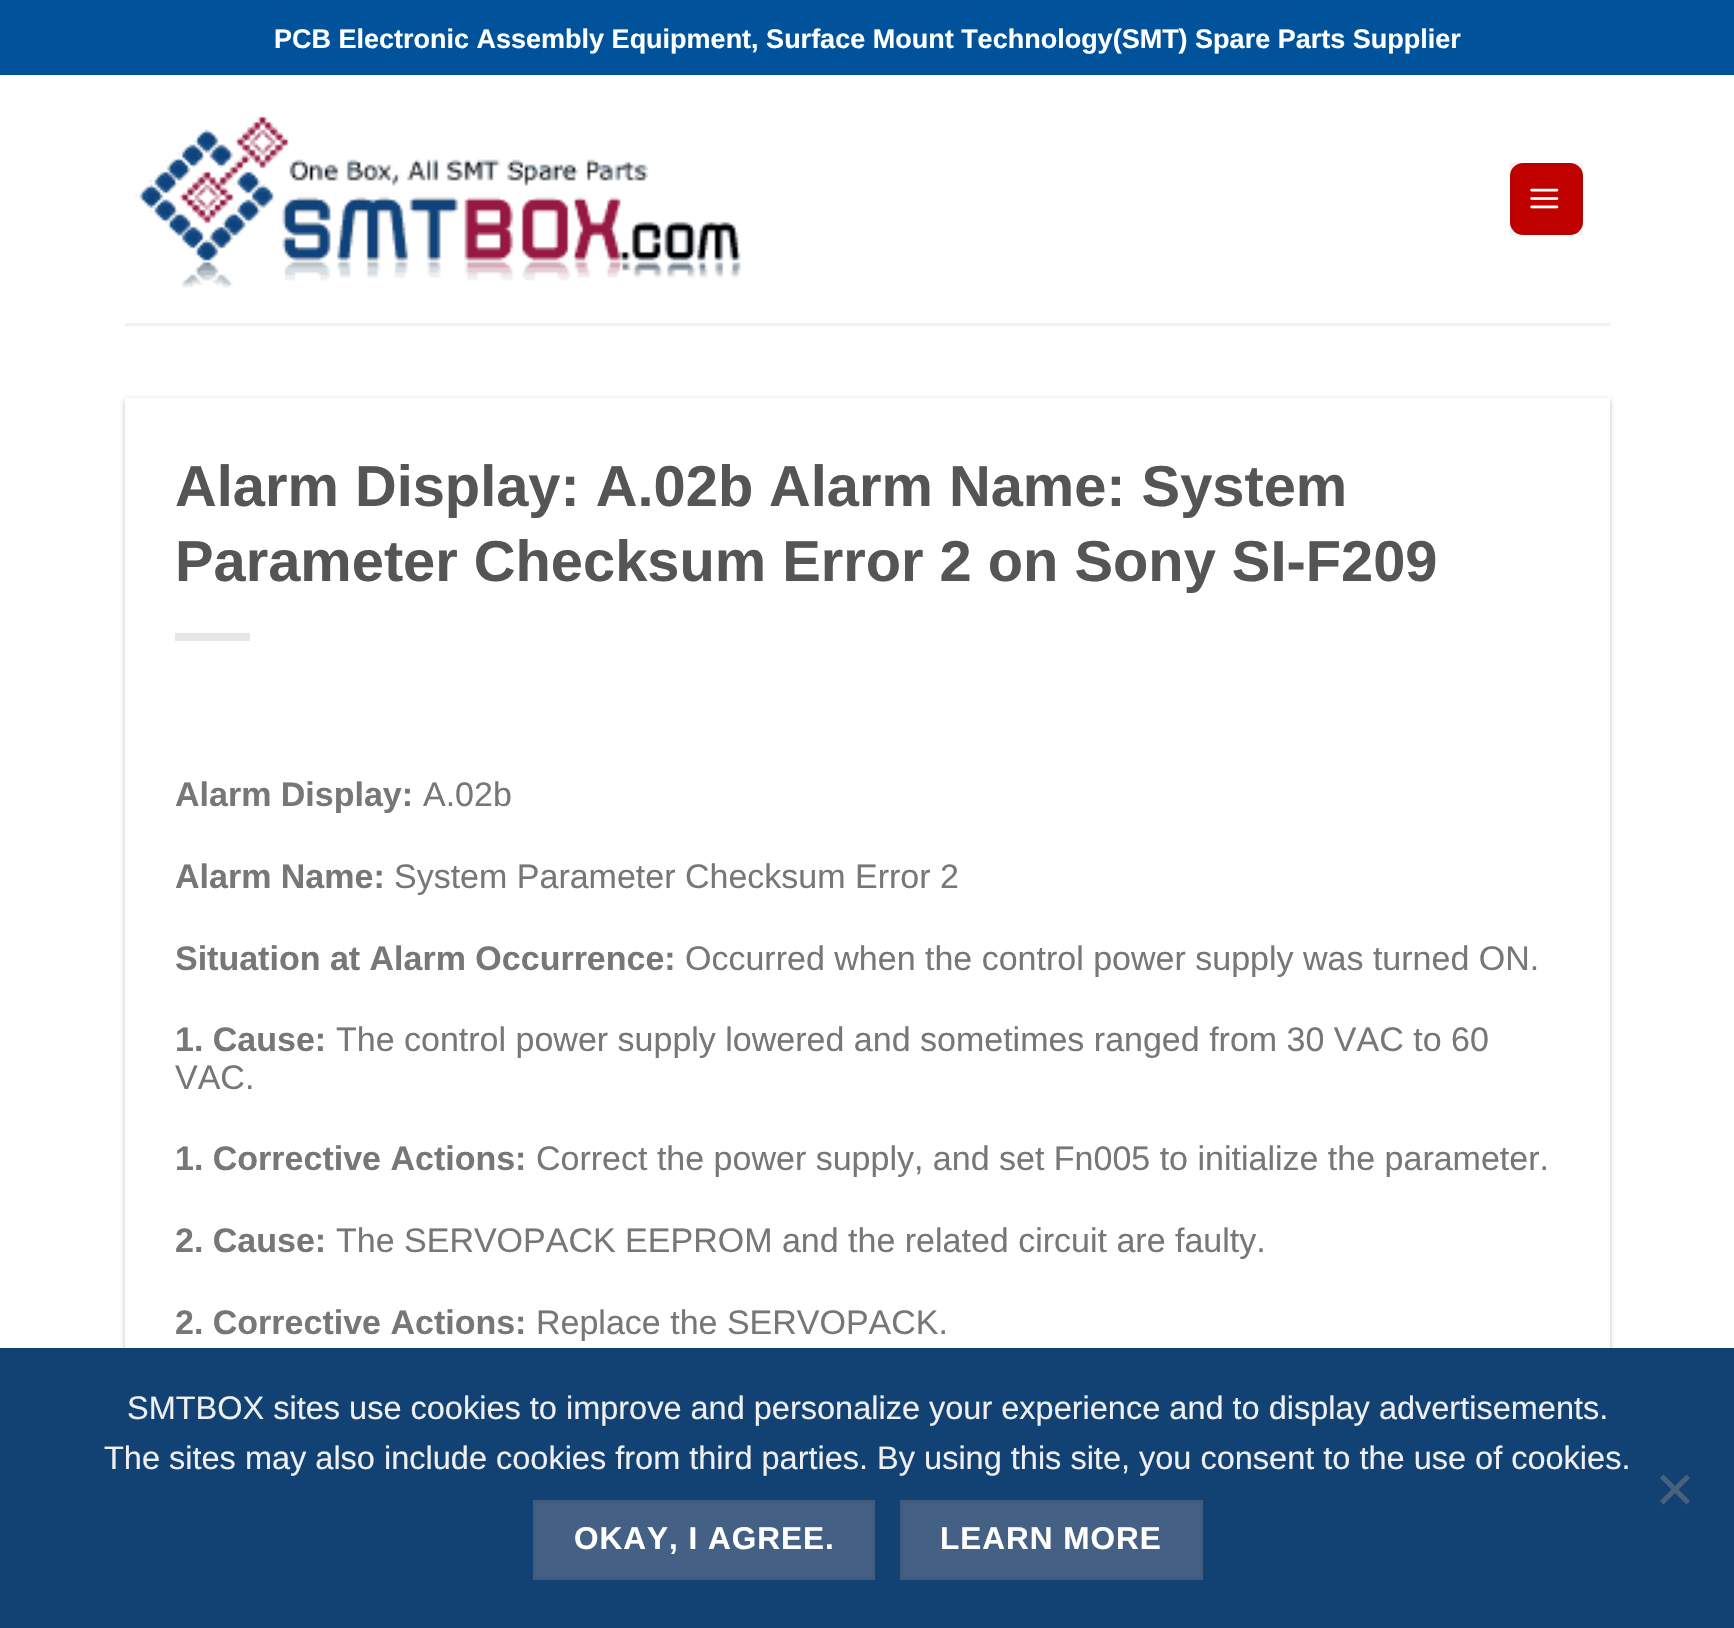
static SkFont makeFont(const char* family, int weight, float size, bool italic = false) {
  SkFontStyle style(weight, SkFontStyle::kNormal_Width,
    italic ? SkFontStyle::kItalic_Slant : SkFontStyle::kUpright_Slant);
  SkFont result(fontMgr->matchFamilyStyle(family, style), size);
  result.setSubpixel(true);
  return result;
}

static void text(SkCanvas* c, const char* s, float x, float y, const SkFont& font, SkColor color) {
  SkPaint ink(SkColor4f::FromColor(color));
  ink.setAntiAlias(true);
  c->drawString(s, x, y, font, ink);
}

static void spacedText(SkCanvas* c, const char* s, float x, float y, const SkFont& font, const SkPaint& ink, float letter, float word) {
  std::vector<SkGlyphID> glyphs(font.countText(s, strlen(s), SkTextEncoding::kUTF8));
  std::vector<float> xs(glyphs.size());
  font.textToGlyphs(s, strlen(s), SkTextEncoding::kUTF8, glyphs);
  font.getXPos(glyphs, xs, x);
  float extra = 0;
  for (size_t i = 0; i < glyphs.size(); i++) {
    xs[i] += extra;
    extra += letter + word * (glyphs[i] == font.unicharToGlyph(' '));
  }
  c->drawTextBlob(SkTextBlob::MakeFromPosHGlyphs(glyphs, xs, y, font), 0, 0, ink);
}

static void box(SkCanvas* c, float l, float t, float r, float b, SkColor color) {
  SkPaint ink(SkColor4f::FromColor(color));
  ink.setAntiAlias(true);
  c->drawRect(SkRect::MakeLTRB(l, t, r, b), ink);
}

static void roundBox(SkCanvas* c, float l, float t, float r, float b, float radius, SkColor color) {
  SkPaint ink(SkColor4f::FromColor(color));
  ink.setAntiAlias(true);
  c->drawRoundRect(SkRect::MakeLTRB(l, t, r, b), radius, radius, ink);
}

static void picture(SkCanvas* c, const char* path, float l, float t, float r, float b) {
  auto image = SkImages::DeferredFromEncodedData(SkData::MakeFromFileName(path));
  c->drawImageRect(image, SkRect::MakeLTRB(l, t, r, b), SkSamplingOptions());
}

void draw(SkCanvas* c) {
  SkPaint paint;
  paint.setAntiAlias(true);
  c->clear(0xffffffff);
  box(c, 0, 0, 1734, 75, 0xff00529b);
  SkFont face1 = makeFont("Liberation Sans", 700, 27);
  text(c, "PCB Electronic Assembly Equipment, Surface Mount Technology(SMT) Spare Parts Supplier", 274, 48, face1, 0xffffffff);
  picture(c, "img_01.png", 135, 116, 741, 288);
  roundBox(c, 1510, 163, 1583, 235, 13, 0xffc10000);
  paint.setStyle(SkPaint::kStroke_Style);
  paint.setStrokeWidth(3);
  paint.setColor(0x0d000000);
  c->drawRect(SkRect::MakeLTRB(1511.5f, 164.5f, 1581.5f, 233.5f), paint);
  picture(c, "img_02.png", 1530, 188, 1559, 209);
  box(c, 125, 323, 1610, 326, 0xfff1f1f1);
  c->save();
  c->clipPath(SkPathBuilder(SkPathFillType::kEvenOdd).moveTo(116, 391).lineTo(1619, 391).lineTo(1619, 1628).lineTo(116, 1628).close().moveTo(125, 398).lineTo(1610, 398).lineTo(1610, 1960).lineTo(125, 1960).close().detach(), true);
  paint.setStyle(SkPaint::kFill_Style);
  paint.setColor(0x3d000000);
  paint.setMaskFilter(SkMaskFilter::MakeBlur(kNormal_SkBlurStyle, 2.5f));
  c->drawRect(SkRect::MakeLTRB(125, 400, 1610, 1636), paint);
  paint.setMaskFilter(nullptr);
  c->restore();
  SkFont face2 = makeFont("Liberation Sans", 700, 57.8f);
  text(c, "Alarm Display: A.02b", 175, 506, face2, 0xff555555);
  text(c, "Alarm Name: System", 769, 506, face2, 0xff555555);
  text(c, "Parameter Checksum Error 2 on Sony SI-F209", 175, 581, face2, 0xff555555);
  box(c, 175, 633, 250, 641, 0xffe6e6e6);
  SkFont face3 = makeFont("Liberation Sans", 700, 34);
  text(c, "Alarm Display:", 175, 806, face3, 0xff777777);
  SkFont face4 = makeFont("Liberation Sans", 400, 34);
  text(c, "A.02b", 423, 806, face4, 0xff777777);
  text(c, "Alarm Name:", 175, 888, face3, 0xff777777);
  text(c, "System Parameter Checksum Error 2", 394, 888, face4, 0xff777777);
  text(c, "Situation at Alarm Occurrence:", 175, 970, face3, 0xff777777);
  text(c, "Occurred when the control power supply was turned ON.", 685, 970, face4, 0xff777777);
  text(c, "1. Cause:", 175, 1051, face3, 0xff777777);
  text(c, "The control power supply lowered and sometimes ranged from 30 VAC to 60", 336, 1051, face4, 0xff777777);
  text(c, "VAC.", 175, 1089, face4, 0xff777777);
  text(c, "1. Corrective Actions:", 175, 1170, face3, 0xff777777);
  text(c, "Correct the power supply, and set Fn005 to initialize the parameter.", 536, 1170, face4, 0xff777777);
  text(c, "2. Cause:", 175, 1252, face3, 0xff777777);
  text(c, "The SERVOPACK EEPROM and the related circuit are faulty.", 336, 1252, face4, 0xff777777);
  text(c, "2. Corrective Actions:", 175, 1334, face3, 0xff777777);
  text(c, "Replace the SERVOPACK.", 536, 1334, face4, 0xff777777);
  box(c, 0, 1348, 1734, 1628, 0xff124273);
  SkFont face5 = makeFont("Liberation Sans", 400, 32.5f);
  text(c, "SMTBOX sites use cookies to improve and personalize your experience and to display advertisements.", 127, 1419, face5, 0xffefefef);
  text(c, "The sites may also include cookies from third parties. By using this site, you consent to the use of cookies.", 104, 1469, face5, 0xffefefef);
  paint.setColor(0xff49617a);
  c->drawPath(SkPathBuilder().moveTo(1686.5f, 1474.5f).lineTo(1690, 1478).lineTo(1663.5f, 1504.5f).lineTo(1660, 1501).close().detach(), paint);
  c->drawPath(SkPathBuilder().moveTo(1660, 1478).lineTo(1663.5f, 1474.5f).lineTo(1690, 1501).lineTo(1686.5f, 1504.5f).close().detach(), paint);
  paint.setColor(0xff446084);
  c->drawRect(SkRect::MakeLTRB(534.5f, 1501.5f, 873.5f, 1578.5f), paint);
  paint.setStyle(SkPaint::kStroke_Style);
  paint.setColor(0xff415b7d);
  c->drawRect(SkRect::MakeLTRB(534.5f, 1501.5f, 873.5f, 1578.5f), paint);
  SkFont face6 = makeFont("Liberation Sans", 700, 31.5f);
  paint.setStyle(SkPaint::kFill_Style);
  paint.setColor(0xffffffff);
  spacedText(c, "OKAY, I AGREE.", 574, 1549, face6, paint, 1, 0);
  paint.setColor(0xff446084);
  c->drawRect(SkRect::MakeLTRB(901.5f, 1501.5f, 1201.5f, 1578.5f), paint);
  paint.setStyle(SkPaint::kStroke_Style);
  paint.setColor(0xff415b7d);
  c->drawRect(SkRect::MakeLTRB(901.5f, 1501.5f, 1201.5f, 1578.5f), paint);
  paint.setStyle(SkPaint::kFill_Style);
  paint.setColor(0xffffffff);
  spacedText(c, "LEARN MORE", 940, 1549, face6, paint, 1, 0);
}
